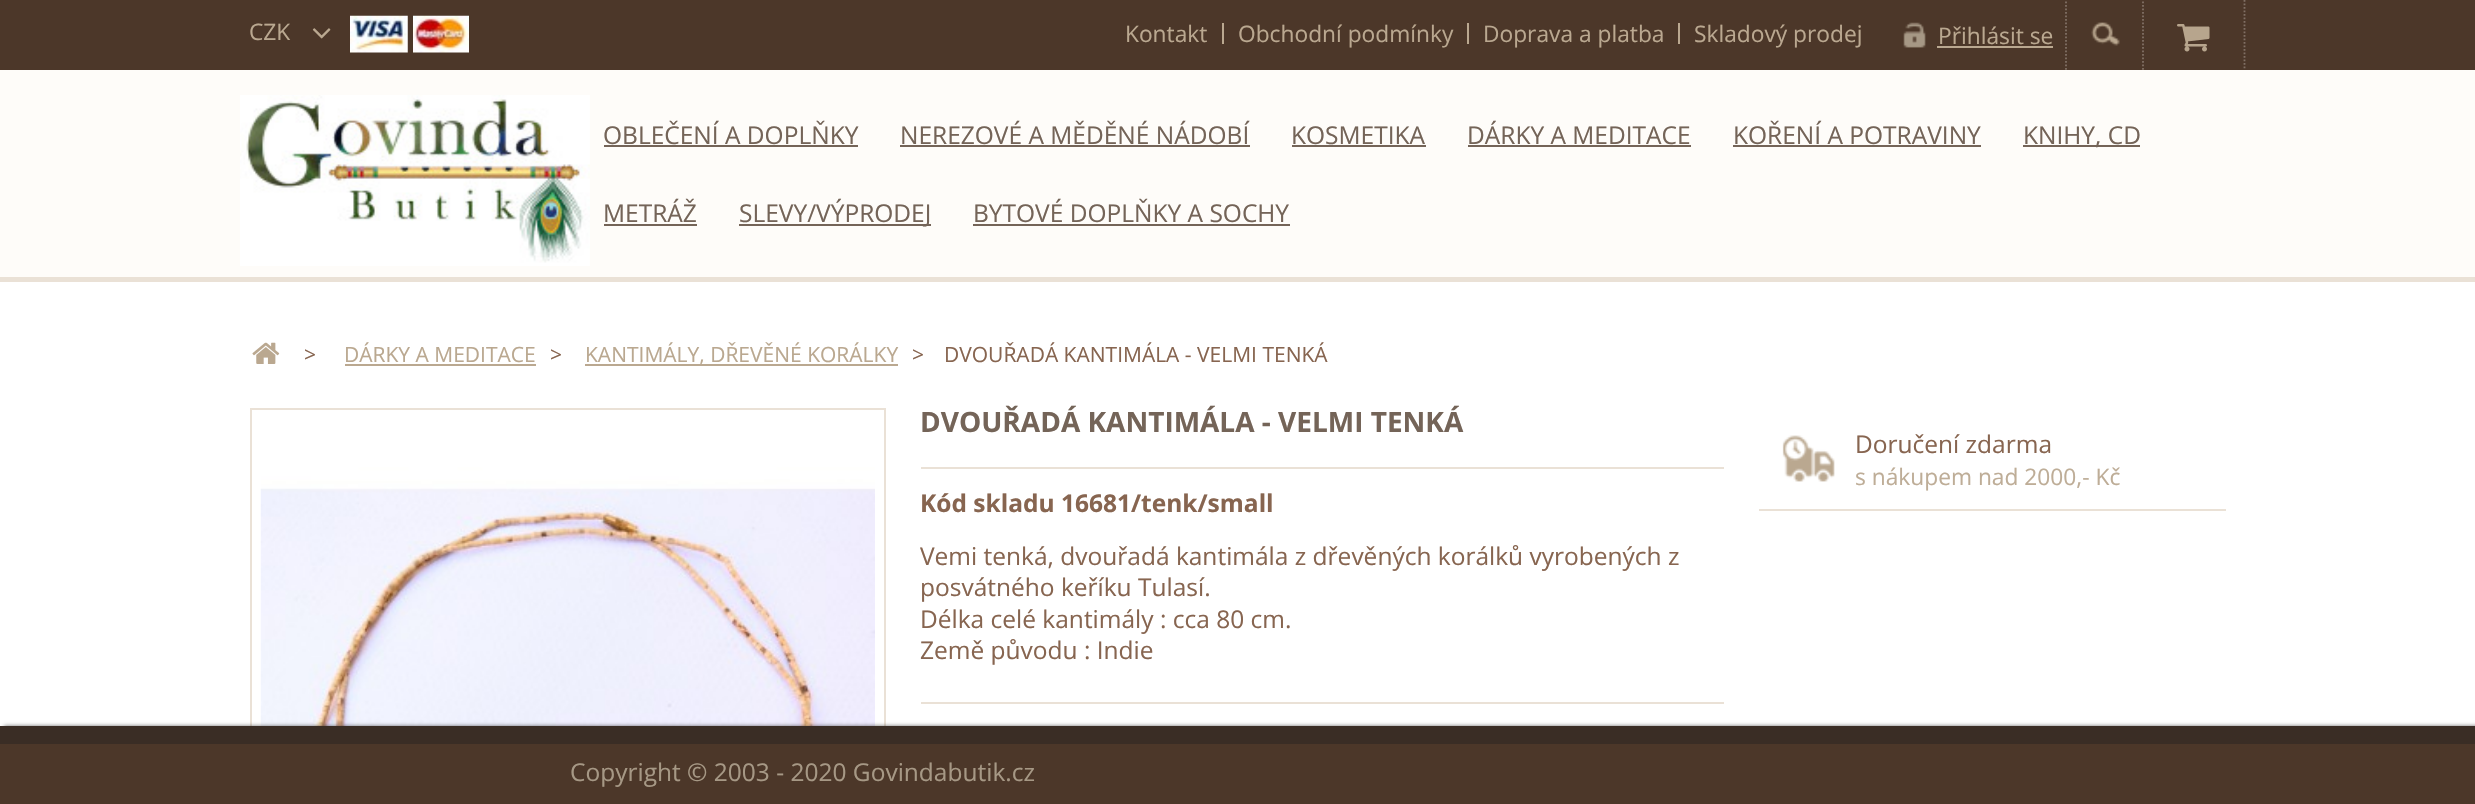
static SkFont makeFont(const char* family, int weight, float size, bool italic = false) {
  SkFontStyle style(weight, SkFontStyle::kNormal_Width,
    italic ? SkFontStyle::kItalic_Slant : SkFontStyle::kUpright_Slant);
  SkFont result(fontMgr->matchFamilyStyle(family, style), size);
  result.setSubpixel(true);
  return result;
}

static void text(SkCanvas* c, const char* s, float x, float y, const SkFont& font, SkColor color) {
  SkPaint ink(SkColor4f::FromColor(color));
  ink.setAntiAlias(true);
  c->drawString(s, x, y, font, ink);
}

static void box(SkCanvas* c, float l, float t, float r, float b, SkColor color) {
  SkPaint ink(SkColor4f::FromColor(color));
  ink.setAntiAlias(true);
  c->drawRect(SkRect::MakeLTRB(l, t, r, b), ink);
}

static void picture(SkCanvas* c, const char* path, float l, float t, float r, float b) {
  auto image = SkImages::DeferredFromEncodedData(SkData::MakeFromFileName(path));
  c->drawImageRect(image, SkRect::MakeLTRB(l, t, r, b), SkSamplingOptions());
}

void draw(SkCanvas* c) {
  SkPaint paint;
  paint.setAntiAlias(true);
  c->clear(0xffffffff);
  box(c, 0, 70, 2475, 277, 0xfffefcf9);
  box(c, 0, 277, 2475, 282, 0xffeae1d6);
  box(c, 0, 0, 2475, 70, 0xff4c3729);
  SkFont face1 = makeFont("Open Sans", 400, 22.75f);
  text(c, "CZK", 249, 40, face1, 0xffbaa890);
  picture(c, "img_01.png", 312, 28, 331, 39);
  picture(c, "img_02.png", 350, 15, 408, 53);
  picture(c, "img_03.png", 413, 15, 469, 53);
  text(c, "Kontakt", 1125, 42, face1, 0xffbaa890);
  box(c, 1222, 23, 1224, 44, 0xffbaa890);
  text(c, "Obchodní podmínky", 1238, 42, face1, 0xffbaa890);
  box(c, 1467, 23, 1469, 44, 0xffbaa890);
  text(c, "Doprava a platba", 1483, 42, face1, 0xffbaa890);
  box(c, 1678, 23, 1680, 44, 0xffbaa890);
  text(c, "Skladový prodej", 1694, 42, face1, 0xffbaa890);
  picture(c, "img_04.png", 1903, 22, 1926, 48);
  text(c, "Přihlásit se", 1938, 44, face1, 0xffbaa890);
  box(c, 1937, 46, 2053, 48, 0xffbaa890);
  picture(c, "img_05.png", 2091, 22, 2120, 46);
  paint.setStyle(SkPaint::kStroke_Style);
  paint.setStrokeWidth(1.8f);
  paint.setColor(0xff806f64);
  paint.setPathEffect(SkDashPathEffect::Make({{1.75f, 1.75f}}, 0));
  c->drawPath(SkPathBuilder().moveTo(2143, -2).lineTo(2143, 70).detach(), paint);
  paint.setPathEffect(nullptr);
  paint.setPathEffect(SkDashPathEffect::Make({{1.75f, 1.75f}}, 0));
  c->drawPath(SkPathBuilder().moveTo(2066, -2).lineTo(2066, 70).detach(), paint);
  paint.setPathEffect(nullptr);
  paint.setPathEffect(SkDashPathEffect::Make({{1.75f, 1.75f}}, 0));
  c->drawPath(SkPathBuilder().moveTo(2244.5f, 0).lineTo(2244.5f, 70).detach(), paint);
  paint.setPathEffect(nullptr);
  picture(c, "img_06.png", 2177, 24, 2210, 52);
  picture(c, "img_07.png", 240, 95, 590, 266);
  SkFont face2 = makeFont("Open Sans", 400, 24.5f);
  text(c, "OBLEČENÍ A DOPLŇKY", 603, 144, face2, 0xff746458);
  box(c, 604, 145, 858, 147, 0xff746458);
  text(c, "NEREZOVÉ A MĚDĚNÉ NÁDOBÍ", 900, 144, face2, 0xff746458);
  box(c, 900, 145, 1250, 147, 0xff746458);
  text(c, "KOSMETIKA", 1291, 144, face2, 0xff746458);
  box(c, 1292, 145, 1426, 147, 0xff746458);
  text(c, "DÁRKY A MEDITACE", 1467, 144, face2, 0xff746458);
  box(c, 1468, 145, 1691, 147, 0xff746458);
  text(c, "KOŘENÍ A POTRAVINY", 1733, 144, face2, 0xff746458);
  box(c, 1733, 145, 1981, 147, 0xff746458);
  box(c, 2023, 145, 2140, 147, 0xff746458);
  text(c, "KNIHY, CD", 2023, 144, face2, 0xff746458);
  text(c, "METRÁŽ", 603, 222, face2, 0xff746458);
  box(c, 604, 224, 697, 226, 0xff746458);
  box(c, 739, 224, 931, 226, 0xff746458);
  text(c, "SLEVY/VÝPRODEJ", 739, 222, face2, 0xff746458);
  text(c, "BYTOVÉ DOPLŇKY A SOCHY", 973, 222, face2, 0xff746458);
  box(c, 973, 224, 1290, 226, 0xff746458);
  picture(c, "img_08.png", 252, 342, 280, 364);
  SkFont face3 = makeFont("Open Sans", 400, 21);
  text(c, ">", 304, 362, face3, 0xff876550);
  text(c, "DÁRKY A MEDITACE", 344, 362, face3, 0xffbaa890);
  box(c, 345, 364, 536, 366, 0xffbaa890);
  text(c, ">", 550, 362, face3, 0xff876550);
  box(c, 585, 364, 898, 366, 0xffbaa890);
  text(c, "KANTIMÁLY, DŘEVĚNÉ KORÁLKY", 585, 362, face3, 0xffbaa890);
  text(c, ">", 912, 362, face3, 0xff876550);
  text(c, "DVOUŘADÁ KANTIMÁLA - VELMI TENKÁ", 944, 362, face3, 0xff876550);
  paint.setStrokeWidth(2);
  paint.setColor(0xffeae1d6);
  c->drawRect(SkRect::MakeLTRB(251, 409, 885, 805), paint);
  picture(c, "img_09.png", 260, 418, 875, 726);
  box(c, 921, 467, 1724, 469, 0xffeae1d6);
  SkFont face4 = makeFont("Open Sans", 700, 28);
  text(c, "DVOUŘADÁ KANTIMÁLA - VELMI TENKÁ", 920, 432, face4, 0xff746458);
  SkFont face5 = makeFont("Open Sans", 700, 24.5f);
  text(c, "Kód skladu 16681/tenk/small", 920, 512, face5, 0xff876550);
  text(c, "Vemi tenká, dvouřadá kantimála z dřevěných korálků vyrobených z", 920, 565, face2, 0xff876550);
  text(c, "posvátného keříku Tulasí.", 920, 596, face2, 0xff876550);
  text(c, "Délka celé kantimály : cca 80 cm.", 920, 628, face2, 0xff876550);
  text(c, "Země původu : Indie", 920, 659, face2, 0xff876550);
  box(c, 921, 702, 1724, 704, 0xffeae1d6);
  picture(c, "img_10.png", 1782, 435, 1835, 482);
  box(c, 1759, 509, 2226, 511, 0xffeae1d6);
  text(c, "Doručení zdarma", 1855, 453, face2, 0xff876550);
  text(c, "s nákupem nad 2000,- Kč", 1855, 485, face1, 0xffbead97);
  paint.setStyle(SkPaint::kFill_Style);
  paint.setColor(0x96000000);
  paint.setMaskFilter(SkMaskFilter::MakeBlur(kNormal_SkBlurStyle, 2));
  c->drawRect(SkRect::MakeLTRB(4, 726, 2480, 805), paint);
  paint.setMaskFilter(nullptr);
  box(c, 0, 744, 2475, 804, 0xff4c3729);
  box(c, 0, 726, 2475, 744, 0xff3a2d25);
  text(c, "Copyright © 2003 - 2020 Govindabutik.cz", 570, 781, face2, 0xffa69885);
}
